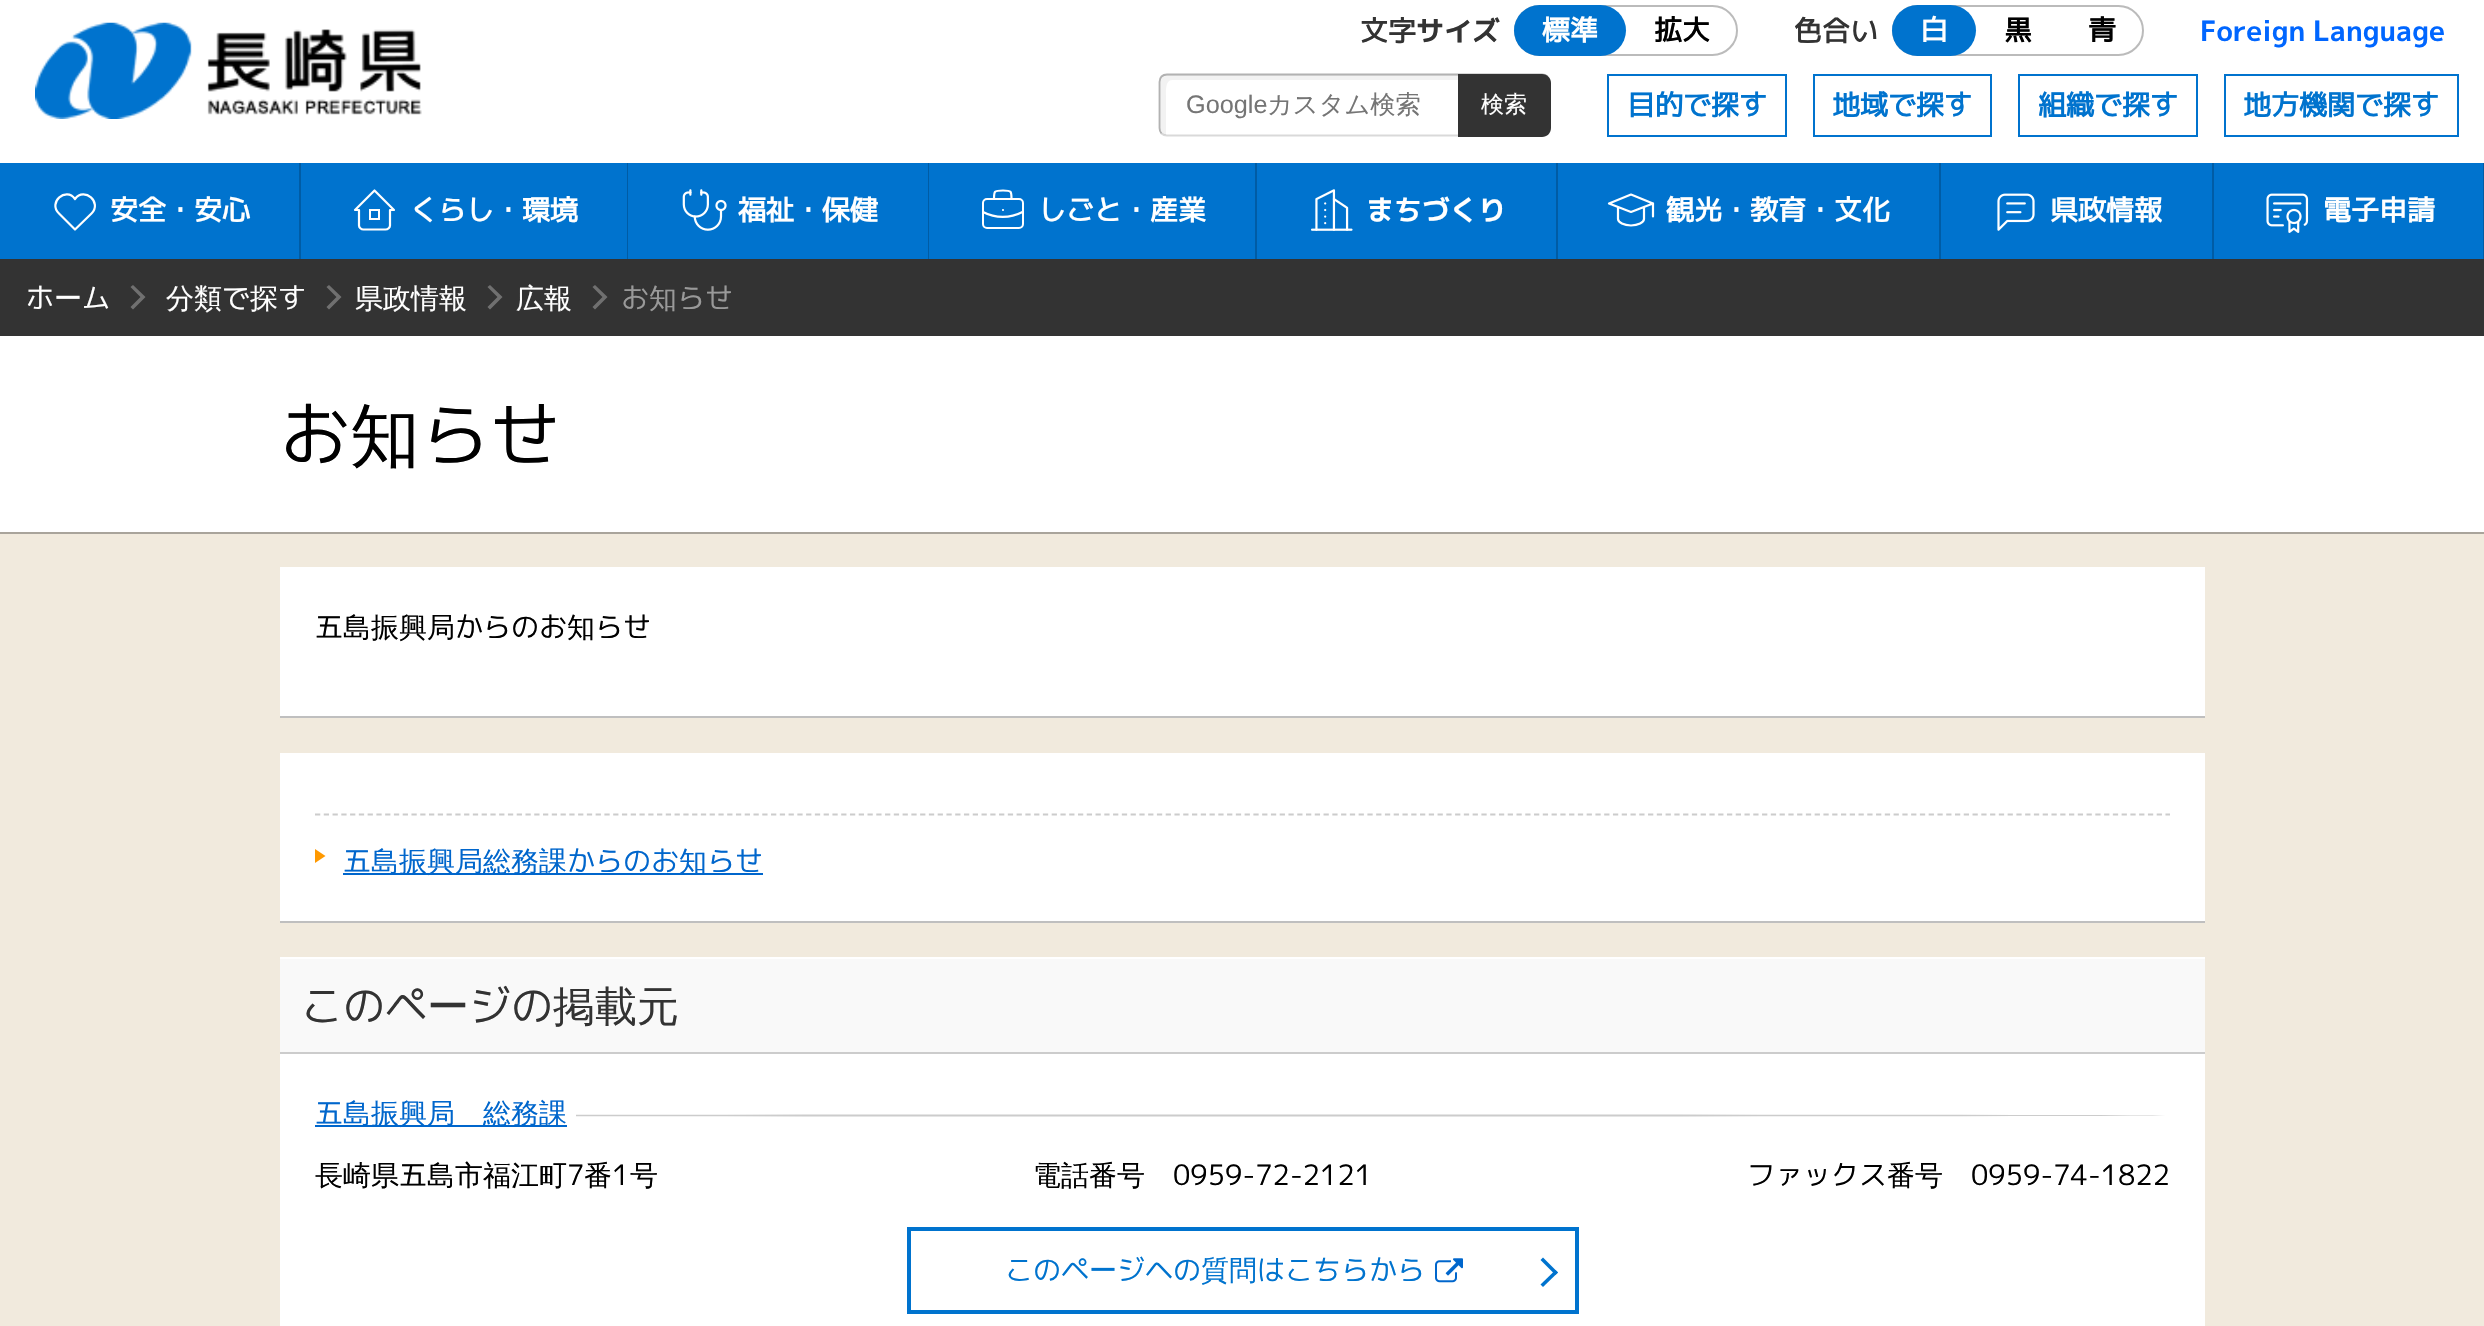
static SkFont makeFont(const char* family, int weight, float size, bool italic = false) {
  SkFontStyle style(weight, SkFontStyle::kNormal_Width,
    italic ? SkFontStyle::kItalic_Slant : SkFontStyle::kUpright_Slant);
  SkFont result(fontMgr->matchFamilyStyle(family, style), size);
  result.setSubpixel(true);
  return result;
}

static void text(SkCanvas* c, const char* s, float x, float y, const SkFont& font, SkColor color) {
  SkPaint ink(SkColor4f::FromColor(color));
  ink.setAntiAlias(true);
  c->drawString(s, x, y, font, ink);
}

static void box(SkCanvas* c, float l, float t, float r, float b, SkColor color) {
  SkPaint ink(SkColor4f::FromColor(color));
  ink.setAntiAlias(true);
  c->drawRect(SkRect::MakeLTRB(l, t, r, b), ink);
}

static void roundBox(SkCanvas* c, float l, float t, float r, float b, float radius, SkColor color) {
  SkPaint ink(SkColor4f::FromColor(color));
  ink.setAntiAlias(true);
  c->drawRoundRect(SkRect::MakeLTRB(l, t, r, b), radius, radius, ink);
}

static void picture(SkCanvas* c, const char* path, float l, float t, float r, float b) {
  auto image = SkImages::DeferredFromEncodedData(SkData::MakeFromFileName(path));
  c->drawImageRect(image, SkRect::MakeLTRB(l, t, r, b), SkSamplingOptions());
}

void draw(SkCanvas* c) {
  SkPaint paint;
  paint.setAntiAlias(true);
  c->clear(0xfff1eadd);
  box(c, 0, 0, 2484, 163, 0xffffffff);
  SkFont face1 = makeFont("M PLUS 1p", 700, 28);
  text(c, "文字", 1360, 41, face1, 0xff333333);
  SkFont face2 = makeFont("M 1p", 700, 28);
  text(c, "サイズ", 1416, 41, face2, 0xff333333);
  paint.setStyle(SkPaint::kStroke_Style);
  paint.setStrokeWidth(2);
  paint.setColor(0xffbbbbbb);
  c->drawRoundRect(SkRect::MakeLTRB(1515, 6, 1737, 55), 24.5f, 24.5f, paint);
  roundBox(c, 1514, 5, 1626, 56, 25.5f, 0xff0073ce);
  text(c, "標準", 1542, 40, face1, 0xffffffff);
  text(c, "拡大", 1654, 40, face1, 0xff000000);
  text(c, "色合い", 1794, 41, face1, 0xff333333);
  c->drawRoundRect(SkRect::MakeLTRB(1893, 6, 2143, 55), 24.5f, 24.5f, paint);
  roundBox(c, 1892, 5, 1976, 56, 25.5f, 0xff0073ce);
  text(c, "白", 1920, 40, face1, 0xffffffff);
  text(c, "黒", 2004, 40, face1, 0xff000000);
  text(c, "青", 2088, 40, face1, 0xff000000);
  text(c, "Foreign", 2200, 41, face2, 0xff0066ff);
  text(c, "Language", 2313, 41, face2, 0xff0066ff);
  paint.setStyle(SkPaint::kFill_Style);
  paint.setColor(0xfff2f2f2);
  c->drawPath(SkPathBuilder().moveTo(1172, 80).lineTo(1549, 80).cubicTo(1548, 77, 1545, 75, 1542, 75).lineTo(1167, 75).cubicTo(1163, 75, 1160, 78, 1160, 82).lineTo(1160, 128).cubicTo(1160, 132, 1163, 135, 1166, 135).lineTo(1166, 96).cubicTo(1166, 92, 1165, 80, 1172, 80).close().detach(), paint);
  paint.setStyle(SkPaint::kStroke_Style);
  paint.setStrokeWidth(1.8f);
  paint.setColor(0x26000000);
  c->drawPath(SkPathBuilder().moveTo(1547.5f, 76.5f).cubicTo(1549, 78, 1549.5f, 80, 1549.5f, 82).lineTo(1549.5f, 128).cubicTo(1549.5f, 130, 1549, 132, 1547.5f, 133.5f).cubicTo(1546, 135, 1544, 135.5f, 1542, 135.5f).lineTo(1167, 135.5f).cubicTo(1165, 135.5f, 1163, 135, 1161.5f, 133.5f).detach(), paint);
  paint.setColor(0x4d000000);
  c->drawPath(SkPathBuilder().moveTo(1161.5f, 133.5f).cubicTo(1160, 132, 1159.5f, 130, 1159.5f, 128).lineTo(1159.5f, 82).cubicTo(1159.5f, 80, 1160, 78, 1161.5f, 76.5f).cubicTo(1163, 75, 1165, 74.5f, 1167, 74.5f).lineTo(1542, 74.5f).cubicTo(1544, 74.5f, 1546, 75, 1547.5f, 76.5f).detach(), paint);
  SkFont face3 = makeFont("Liberation Sans", 400, 25.25f);
  text(c, "Google", 1186, 113, face3, 0xff757575);
  SkFont face4 = makeFont("WenQuanYi Zen Hei", 500, 25.25f);
  text(c, "カスタム検索", 1267, 113, face4, 0xff757575);
  paint.setStyle(SkPaint::kFill_Style);
  paint.setColor(0xff333333);
  c->drawPath(SkPathBuilder().moveTo(1458, 74).lineTo(1542, 74).cubicTo(1547, 74, 1551, 78, 1551, 83).lineTo(1551, 128).cubicTo(1551, 133, 1547, 137, 1542, 137).lineTo(1458, 137).close().detach(), paint);
  SkFont face5 = makeFont("WenQuanYi Zen Hei", 500, 23);
  text(c, "検索", 1481, 112, face5, 0xffffffff);
  paint.setStyle(SkPaint::kStroke_Style);
  paint.setStrokeWidth(2);
  paint.setColor(0xff0073ce);
  c->drawRect(SkRect::MakeLTRB(1608, 75, 1786, 136), paint);
  text(c, "目的で探す", 1627, 115, face1, 0xff0073ce);
  c->drawRect(SkRect::MakeLTRB(1814, 75, 1991, 136), paint);
  text(c, "地域で探す", 1832, 115, face1, 0xff0073ce);
  c->drawRect(SkRect::MakeLTRB(2019, 75, 2197, 136), paint);
  text(c, "組織で探す", 2038, 115, face1, 0xff0073ce);
  c->drawRect(SkRect::MakeLTRB(2225, 75, 2458, 136), paint);
  text(c, "地方機関で探す", 2243, 115, face1, 0xff0073ce);
  box(c, 0, 163, 299, 259, 0xff0073ce);
  box(c, 299, 163, 301, 259, 0xff005ca5);
  paint.setStrokeWidth(2.2f);
  paint.setStrokeCap(SkPaint::kRound_Cap);
  paint.setStrokeJoin(SkPaint::kRound_Join);
  paint.setColor(0xffffffff);
  c->drawPath(SkPathBuilder().moveTo(91.5f, 213.5f).lineTo(75, 229.5f).lineTo(59, 213.5f).moveTo(59, 213.5f).cubicTo(47.5f, 202.5f, 66, 186.5f, 75, 199).cubicTo(84.5f, 186.5f, 102.5f, 202.5f, 91.5f, 213.5f).detach(), paint);
  text(c, "安全・安心", 110, 220, face1, 0xffffffff);
  box(c, 301, 163, 627, 259, 0xff0073ce);
  box(c, 627, 163, 628, 259, 0xff005ca5);
  c->drawPath(SkPathBuilder().moveTo(359, 210).lineTo(355, 210).lineTo(374.5f, 190.5f).lineTo(394, 210).lineTo(390, 210).moveTo(359, 210).lineTo(359, 225.5f).cubicTo(359, 227.5f, 361, 229.5f, 363.5f, 229.5f).lineTo(385.5f, 229.5f).cubicTo(388, 229.5f, 390, 227.5f, 390, 225.5f).lineTo(390, 210).detach(), paint);
  paint.setStrokeWidth(2);
  paint.setStrokeCap(SkPaint::kButt_Cap);
  paint.setStrokeJoin(SkPaint::kMiter_Join);
  c->drawRect(SkRect::MakeLTRB(370, 210, 379, 219), paint);
  text(c, "くらし・環境", 410, 220, face1, 0xffffffff);
  box(c, 628, 163, 928, 259, 0xff0073ce);
  box(c, 928, 163, 929, 259, 0xff005ca5);
  picture(c, "img_01.png", 682, 189, 727, 231);
  text(c, "福祉・保健", 738, 220, face1, 0xffffffff);
  box(c, 929, 163, 1255, 259, 0xff0073ce);
  box(c, 1255, 163, 1257, 259, 0xff005ca5);
  c->drawRoundRect(SkRect::MakeLTRB(983, 199, 1023, 228), 4, 4, paint);
  paint.setStrokeWidth(2.2f);
  paint.setStrokeCap(SkPaint::kRound_Cap);
  paint.setStrokeJoin(SkPaint::kRound_Join);
  c->drawPath(SkPathBuilder().moveTo(994, 199).cubicTo(994, 191, 994, 190.5f, 1003, 190.5f).cubicTo(1011.5f, 190.5f, 1011.5f, 191, 1011.5f, 199).moveTo(1003, 210).lineTo(1003, 210).moveTo(983, 212).cubicTo(995.5f, 218.5f, 1010, 218.5f, 1022.5f, 212).detach(), paint);
  text(c, "しごと・産業", 1038, 220, face1, 0xffffffff);
  box(c, 1257, 163, 1556, 259, 0xff0073ce);
  box(c, 1556, 163, 1558, 259, 0xff005ca5);
  picture(c, "img_02.png", 1311, 189, 1353, 231);
  text(c, "まちづくり", 1366, 220, face2, 0xffffffff);
  box(c, 1558, 163, 1939, 259, 0xff0073ce);
  box(c, 1939, 163, 1941, 259, 0xff005ca5);
  c->drawPath(SkPathBuilder().moveTo(1653, 203.5f).lineTo(1631, 194.5f).lineTo(1609, 203.5f).lineTo(1631, 212).lineTo(1653, 203.5f).lineTo(1653, 216.5f).moveTo(1618, 207).lineTo(1618, 219).cubicTo(1618, 222.5f, 1624, 225.5f, 1631, 225.5f).cubicTo(1638, 225.5f, 1644, 222.5f, 1644, 219).lineTo(1644, 207).detach(), paint);
  text(c, "観光・教育・文化", 1666, 220, face1, 0xffffffff);
  box(c, 1941, 163, 2212, 259, 0xff0073ce);
  box(c, 2212, 163, 2214, 259, 0xff005ca5);
  picture(c, "img_03.png", 1997, 193, 2035, 231);
  text(c, "県政情報", 2050, 220, face1, 0xffffffff);
  box(c, 2214, 163, 2483, 259, 0xff0073ce);
  box(c, 2483, 163, 2484, 259, 0xff005ca5);
  picture(c, "img_04.png", 2266, 193, 2309, 233);
  text(c, "電子申請", 2323, 220, face1, 0xffffffff);
  picture(c, "img_05.png", 35, 22, 422, 119);
  box(c, 0, 259, 2484, 336, 0xff333333);
  SkFont face6 = makeFont("M 1p", 400, 28);
  text(c, "ホ", 26, 308, face6, 0xffffffff);
  SkFont face7 = makeFont("WenQuanYi Zen Hei", 500, 28);
  text(c, "ー", 54, 308, face7, 0xffffffff);
  text(c, "ム", 82, 308, face6, 0xffffffff);
  paint.setStyle(SkPaint::kFill_Style);
  paint.setColor(0xff707070);
  c->drawPath(SkPathBuilder().moveTo(133, 285).lineTo(145.5f, 297).lineTo(140.5f, 297).lineTo(130.5f, 287).close().moveTo(145.5f, 297).lineTo(133, 309.5f).lineTo(130.5f, 307).lineTo(140.5f, 297).close().detach(), paint);
  text(c, "分類", 166, 308, face7, 0xffffffff);
  text(c, "で", 222, 308, face6, 0xffffffff);
  text(c, "探", 250, 308, face7, 0xffffffff);
  text(c, "す", 278, 308, face6, 0xffffffff);
  c->drawPath(SkPathBuilder().moveTo(329, 285).lineTo(341.5f, 297).lineTo(336.5f, 297).lineTo(326.5f, 287).close().moveTo(341.5f, 297).lineTo(329, 309.5f).lineTo(326.5f, 307).lineTo(336.5f, 297).close().detach(), paint);
  text(c, "県政情報", 355, 308, face7, 0xffffffff);
  c->drawPath(SkPathBuilder().moveTo(490, 285).lineTo(502.5f, 297).lineTo(497.5f, 297).lineTo(487.5f, 287).close().moveTo(502.5f, 297).lineTo(490, 309.5f).lineTo(487.5f, 307).lineTo(497.5f, 297).close().detach(), paint);
  text(c, "広報", 516, 308, face7, 0xffffffff);
  c->drawPath(SkPathBuilder().moveTo(595, 285).lineTo(607.5f, 297).lineTo(602.5f, 297).lineTo(592.5f, 287).close().moveTo(607.5f, 297).lineTo(595, 309.5f).lineTo(592.5f, 307).lineTo(602.5f, 297).close().detach(), paint);
  text(c, "お", 621, 308, face6, 0xff999999);
  text(c, "知", 649, 308, face7, 0xff999999);
  text(c, "らせ", 677, 308, face6, 0xff999999);
  box(c, 0, 532, 2484, 534, 0xffa9a49b);
  box(c, 0, 336, 2484, 532, 0xffffffff);
  SkFont face8 = makeFont("M 1p", 400, 70);
  text(c, "お", 280, 460, face8, 0xff000000);
  SkFont face9 = makeFont("WenQuanYi Zen Hei", 500, 70);
  text(c, "知", 350, 460, face9, 0xff000000);
  text(c, "らせ", 420, 460, face8, 0xff000000);
  box(c, 280, 567, 2205, 716, 0xffffffff);
  box(c, 280, 716, 2205, 718, 0xffbfbfbf);
  text(c, "五", 315, 637, face6, 0xff000000);
  text(c, "島振興局", 343, 637, face7, 0xff000000);
  text(c, "からのお", 455, 637, face6, 0xff000000);
  text(c, "知", 567, 637, face7, 0xff000000);
  text(c, "らせ", 595, 637, face6, 0xff000000);
  box(c, 280, 753, 2205, 921, 0xffffffff);
  box(c, 280, 921, 2205, 923, 0xffbfbfbf);
  paint.setStyle(SkPaint::kStroke_Style);
  paint.setStrokeWidth(1.8f);
  paint.setStrokeCap(SkPaint::kButt_Cap);
  paint.setStrokeJoin(SkPaint::kMiter_Join);
  paint.setColor(0xffcccccc);
  paint.setPathEffect(SkDashPathEffect::Make({{5.25f, 3.52f}}, 0));
  c->drawPath(SkPathBuilder().moveTo(315, 814.5f).lineTo(2170, 814.5f).detach(), paint);
  paint.setPathEffect(nullptr);
  paint.setStyle(SkPaint::kFill_Style);
  paint.setColor(0xffff9900);
  c->drawPath(SkPathBuilder().moveTo(315, 863).lineTo(315, 849).lineTo(325.5f, 856).close().detach(), paint);
  text(c, "五", 343, 871, face6, 0xff0066cc);
  box(c, 343, 873, 763, 875, 0xff0066cc);
  text(c, "島振興局総務課", 371, 871, face7, 0xff0066cc);
  text(c, "からのお", 567, 871, face6, 0xff0066cc);
  text(c, "知", 679, 871, face7, 0xff0066cc);
  text(c, "らせ", 707, 871, face6, 0xff0066cc);
  box(c, 280, 1054, 2205, 1326, 0xffffffff);
  box(c, 280, 959, 2205, 1052, 0xfff9f9f9);
  box(c, 280, 957, 2205, 959, 0xffffffff);
  box(c, 280, 1052, 2205, 1054, 0xffcccccc);
  SkFont face10 = makeFont("M 1p", 400, 42);
  text(c, "このペ", 301, 1021, face10, 0xff333333);
  SkFont face11 = makeFont("WenQuanYi Zen Hei", 500, 42);
  text(c, "ー", 427, 1021, face11, 0xff333333);
  text(c, "ジの", 469, 1021, face10, 0xff333333);
  text(c, "掲載元", 553, 1021, face11, 0xff333333);
  paint.setColor(0xffcccccc);
  c->drawOval(SkRect::MakeLTRB(315, 1114.5f, 2170, 1116.5f), paint);
  box(c, 315, 1114, 576, 1117, 0xffffffff);
  text(c, "五", 315, 1123, face6, 0xff0066cc);
  box(c, 315, 1125, 567, 1127, 0xff0066cc);
  text(c, "島振興局　総務課", 343, 1123, face7, 0xff0066cc);
  text(c, "長崎県", 315, 1185, face7, 0xff000000);
  text(c, "五", 399, 1185, face6, 0xff000000);
  text(c, "島市福江町", 427, 1185, face7, 0xff000000);
  text(c, "7", 567, 1185, face6, 0xff000000);
  text(c, "番", 584, 1185, face7, 0xff000000);
  text(c, "1", 612, 1185, face6, 0xff000000);
  text(c, "号", 630, 1185, face7, 0xff000000);
  text(c, "電話番号", 1033, 1185, face7, 0xff000000);
  text(c, "0959-72-2121", 1173, 1185, face6, 0xff000000);
  text(c, "ファックス", 1747, 1185, face6, 0xff000000);
  text(c, "番号", 1887, 1185, face7, 0xff000000);
  text(c, "0959-74-1822", 1971, 1185, face6, 0xff000000);
  paint.setStyle(SkPaint::kStroke_Style);
  paint.setStrokeWidth(4);
  paint.setColor(0xff0073ce);
  c->drawRect(SkRect::MakeLTRB(909, 1229, 1577, 1312), paint);
  text(c, "このペ", 1005, 1280, face6, 0xff0073ce);
  text(c, "ー", 1089, 1280, face7, 0xff0073ce);
  text(c, "ジヘの", 1117, 1280, face6, 0xff0073ce);
  text(c, "質問", 1201, 1280, face7, 0xff0073ce);
  text(c, "はこちらから", 1257, 1280, face6, 0xff0073ce);
  picture(c, "img_06.png", 1435, 1258, 1463, 1283);
  paint.setStyle(SkPaint::kFill_Style);
  c->drawPath(SkPathBuilder().moveTo(1543, 1257.5f).lineTo(1558, 1272.5f).lineTo(1555.5f, 1275).lineTo(1540.5f, 1260).close().detach(), paint);
  c->drawPath(SkPathBuilder().moveTo(1555.5f, 1270).lineTo(1558, 1272.5f).lineTo(1543, 1287).lineTo(1540.5f, 1284.5f).close().detach(), paint);
}
